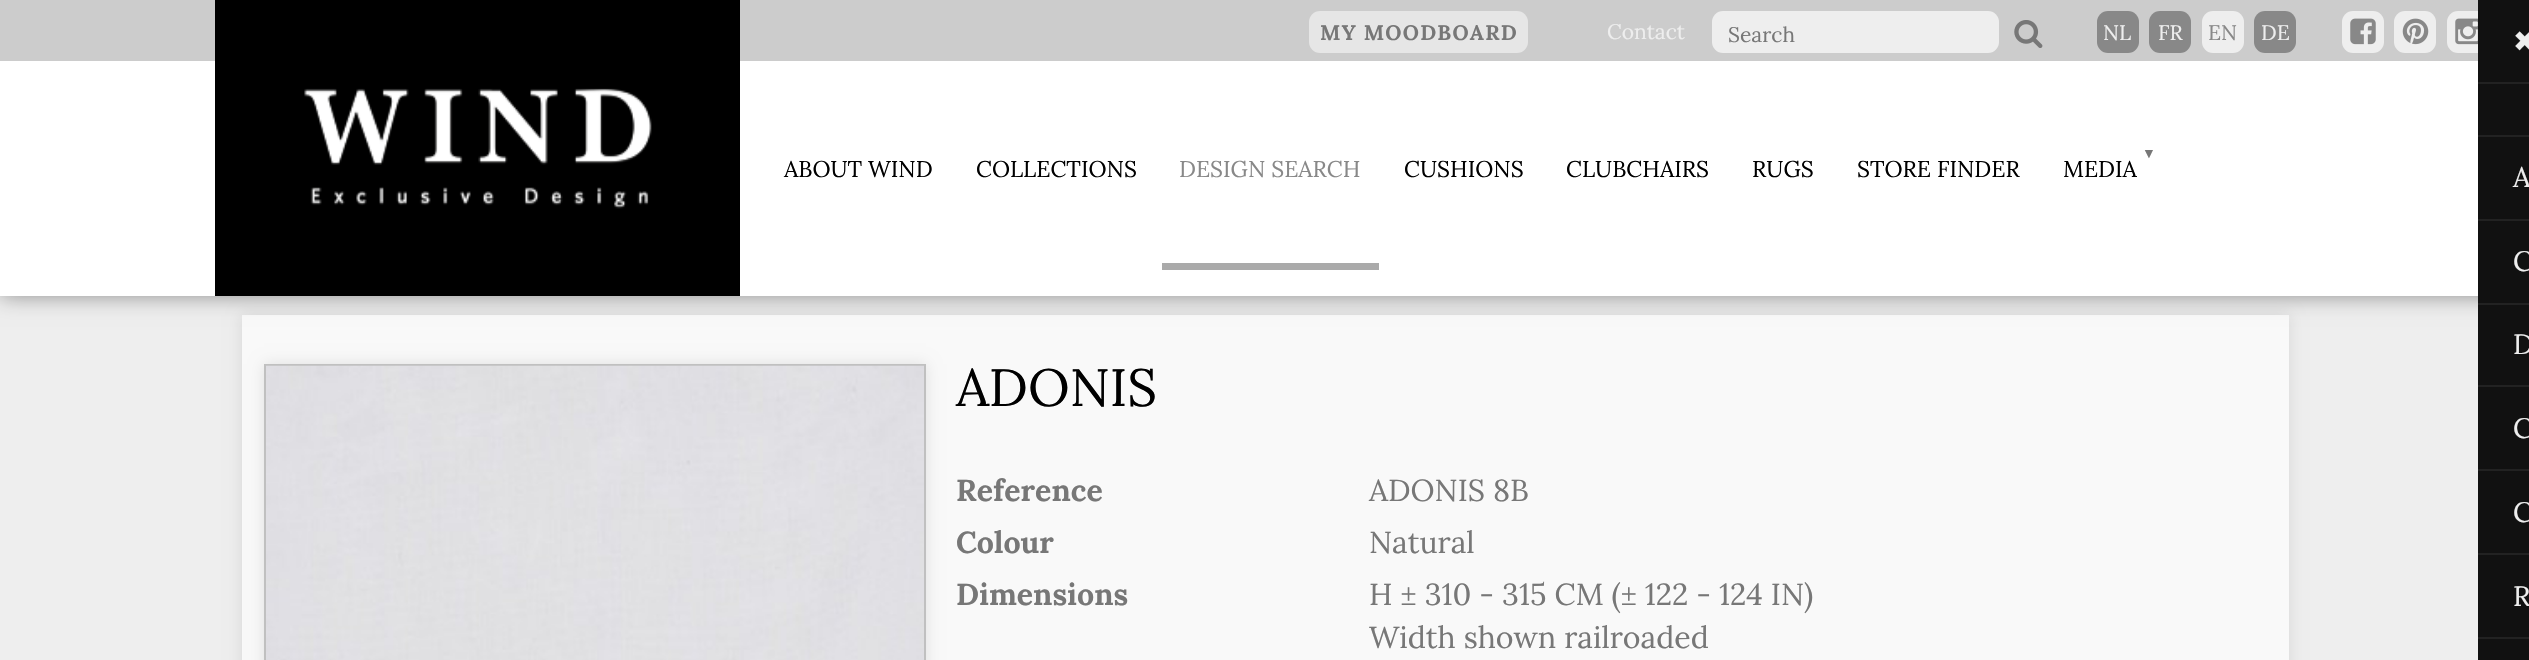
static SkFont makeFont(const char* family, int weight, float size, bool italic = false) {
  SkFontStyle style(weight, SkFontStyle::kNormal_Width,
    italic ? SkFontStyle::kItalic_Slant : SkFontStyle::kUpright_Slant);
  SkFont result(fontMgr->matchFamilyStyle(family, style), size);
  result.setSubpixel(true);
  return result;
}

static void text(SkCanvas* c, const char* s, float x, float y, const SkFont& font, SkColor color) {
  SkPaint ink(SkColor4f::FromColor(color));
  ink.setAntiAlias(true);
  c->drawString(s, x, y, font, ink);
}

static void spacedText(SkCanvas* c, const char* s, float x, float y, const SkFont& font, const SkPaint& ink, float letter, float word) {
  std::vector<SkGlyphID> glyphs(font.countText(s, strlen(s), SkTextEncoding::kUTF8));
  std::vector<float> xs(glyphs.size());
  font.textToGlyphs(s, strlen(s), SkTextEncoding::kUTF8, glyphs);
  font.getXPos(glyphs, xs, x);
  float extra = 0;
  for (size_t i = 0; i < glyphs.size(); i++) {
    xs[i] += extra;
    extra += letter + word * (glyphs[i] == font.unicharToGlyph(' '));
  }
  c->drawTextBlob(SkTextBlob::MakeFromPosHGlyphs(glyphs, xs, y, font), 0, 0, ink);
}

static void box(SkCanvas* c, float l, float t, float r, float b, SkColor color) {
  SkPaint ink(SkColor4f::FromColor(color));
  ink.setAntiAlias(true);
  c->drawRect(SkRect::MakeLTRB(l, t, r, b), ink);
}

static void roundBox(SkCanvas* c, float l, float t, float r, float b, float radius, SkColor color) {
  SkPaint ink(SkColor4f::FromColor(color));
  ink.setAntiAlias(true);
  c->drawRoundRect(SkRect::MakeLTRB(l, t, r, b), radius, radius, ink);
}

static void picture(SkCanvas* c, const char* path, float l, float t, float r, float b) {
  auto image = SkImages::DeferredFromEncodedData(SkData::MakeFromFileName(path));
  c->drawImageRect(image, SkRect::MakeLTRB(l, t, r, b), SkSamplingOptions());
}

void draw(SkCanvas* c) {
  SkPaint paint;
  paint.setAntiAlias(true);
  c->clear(0xffeeeeee);
  paint.setColor(0x1a000000);
  paint.setMaskFilter(SkMaskFilter::MakeBlur(kNormal_SkBlurStyle, 7));
  c->drawRect(SkRect::MakeLTRB(242, 315, 2289, 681), paint);
  paint.setMaskFilter(nullptr);
  box(c, 242, 315, 2289, 660, 0xfff9f9f9);
  paint.setColor(0x66000000);
  paint.setMaskFilter(SkMaskFilter::MakeBlur(kNormal_SkBlurStyle, 10.5f));
  c->drawRect(SkRect::MakeLTRB(0, 0, 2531, 296), paint);
  paint.setMaskFilter(nullptr);
  box(c, 0, 61, 2478, 296, 0xffffffff);
  box(c, 0, 0, 2478, 61, 0xffcccccc);
  roundBox(c, 1309, 11, 1528, 53, 11, 0xffe6e6e6);
  SkFont face1 = makeFont("Lora", 700, 21);
  paint.setColor(0xff777777);
  spacedText(c, "MY MOODBOARD", 1320, 40, face1, paint, 1.25f, 0);
  SkFont face2 = makeFont("Lora", 400, 21);
  text(c, "Contact", 1607, 39, face2, 0xffeeeeee);
  roundBox(c, 1712, 11, 1999, 53, 11, 0xffeeeeee);
  text(c, "Search", 1728, 42, face2, 0xff777777);
  picture(c, "img_01.png", 2014, 20, 2043, 48);
  roundBox(c, 2097, 11, 2139, 53, 11, 0xff888888);
  text(c, "NL", 2103, 40, face2, 0xffeeeeee);
  roundBox(c, 2149, 11, 2191, 53, 11, 0xff888888);
  text(c, "FR", 2158, 40, face2, 0xffeeeeee);
  roundBox(c, 2202, 11, 2244, 53, 11, 0xffeeeeee);
  text(c, "EN", 2208, 40, face2, 0xff888888);
  roundBox(c, 2254, 11, 2296, 53, 11, 0xff888888);
  text(c, "DE", 2261, 40, face2, 0xffeeeeee);
  roundBox(c, 2342, 11, 2384, 53, 11, 0xffeeeeee);
  picture(c, "img_02.png", 2350, 18, 2376, 45);
  roundBox(c, 2394, 11, 2436, 53, 11, 0xffeeeeee);
  picture(c, "img_03.png", 2402, 18, 2429, 45);
  roundBox(c, 2447, 11, 2489, 53, 11, 0xffeeeeee);
  picture(c, "img_04.png", 2455, 18, 2478, 45);
  box(c, 2478, 0, 2529, 660, 0xff111111);
  box(c, 2478, 82, 2529, 84, 0xff222222);
  SkFont face3 = makeFont("DejaVu Sans", 400, 28);
  text(c, "✖", 2513, 51, face3, 0xffeeeeee);
  box(c, 2478, 135, 2529, 137, 0xff222222);
  box(c, 2478, 219, 2529, 221, 0xff222222);
  SkFont face4 = makeFont("Lora", 400, 28);
  text(c, "A", 2513, 187, face4, 0xffeeeeee);
  box(c, 2478, 303, 2529, 305, 0xff222222);
  text(c, "C", 2513, 271, face4, 0xffeeeeee);
  box(c, 2478, 385, 2529, 387, 0xff222222);
  text(c, "D", 2513, 354, face4, 0xffeeeeee);
  box(c, 2478, 469, 2529, 471, 0xff222222);
  text(c, "C", 2513, 438, face4, 0xffeeeeee);
  box(c, 2478, 553, 2529, 555, 0xff222222);
  text(c, "C", 2513, 522, face4, 0xffeeeeee);
  box(c, 2478, 637, 2529, 639, 0xff222222);
  text(c, "R", 2513, 606, face4, 0xffeeeeee);
  box(c, 215, 0, 740, 296, 0xff000000);
  picture(c, "img_05.png", 304, 88, 652, 209);
  SkFont face5 = makeFont("Lora", 400, 22.75f);
  text(c, "ABOUT WIND", 784, 177, face5, 0xff000000);
  text(c, "COLLECTIONS", 976, 177, face5, 0xff000000);
  box(c, 1162, 263, 1379, 270, 0xffaaaaaa);
  text(c, "DESIGN SEARCH", 1179, 177, face5, 0xff888888);
  text(c, "CUSHIONS", 1404, 177, face5, 0xff000000);
  text(c, "CLUBCHAIRS", 1566, 177, face5, 0xff000000);
  text(c, "RUGS", 1752, 177, face5, 0xff000000);
  text(c, "STORE FINDER", 1857, 177, face5, 0xff000000);
  SkFont face6 = makeFont("Liberation Serif", 400, 14);
  text(c, "▼", 2142, 158, face6, 0xff777777);
  text(c, "MEDIA", 2063, 177, face5, 0xff000000);
  paint.setColor(0x1a000000);
  paint.setMaskFilter(SkMaskFilter::MakeBlur(kNormal_SkBlurStyle, 7));
  c->drawRect(SkRect::MakeLTRB(264, 364, 926, 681), paint);
  paint.setMaskFilter(nullptr);
  paint.setStyle(SkPaint::kStroke_Style);
  paint.setStrokeWidth(2);
  paint.setColor(0xffc0c0c0);
  c->drawRect(SkRect::MakeLTRB(265, 365, 925, 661), paint);
  picture(c, "img_06.png", 266, 365, 924, 660);
  SkFont face7 = makeFont("Lora", 400, 52.5f);
  text(c, "ADONIS", 956, 406, face7, 0xff000000);
  SkFont face8 = makeFont("Lora", 700, 30.3f);
  text(c, "Reference", 956, 501, face8, 0xff777777);
  SkFont face9 = makeFont("Lora", 400, 30.3f);
  text(c, "ADONIS 8B", 1369, 501, face9, 0xff777777);
  text(c, "Colour", 956, 553, face8, 0xff777777);
  text(c, "Natural", 1369, 553, face9, 0xff777777);
  text(c, "Dimensions", 956, 605, face8, 0xff777777);
  text(c, "H ± 310 - 315 CM (± 122 - 124 IN)", 1369, 605, face9, 0xff777777);
  text(c, "Width shown railroaded", 1369, 648, face9, 0xff777777);
}
